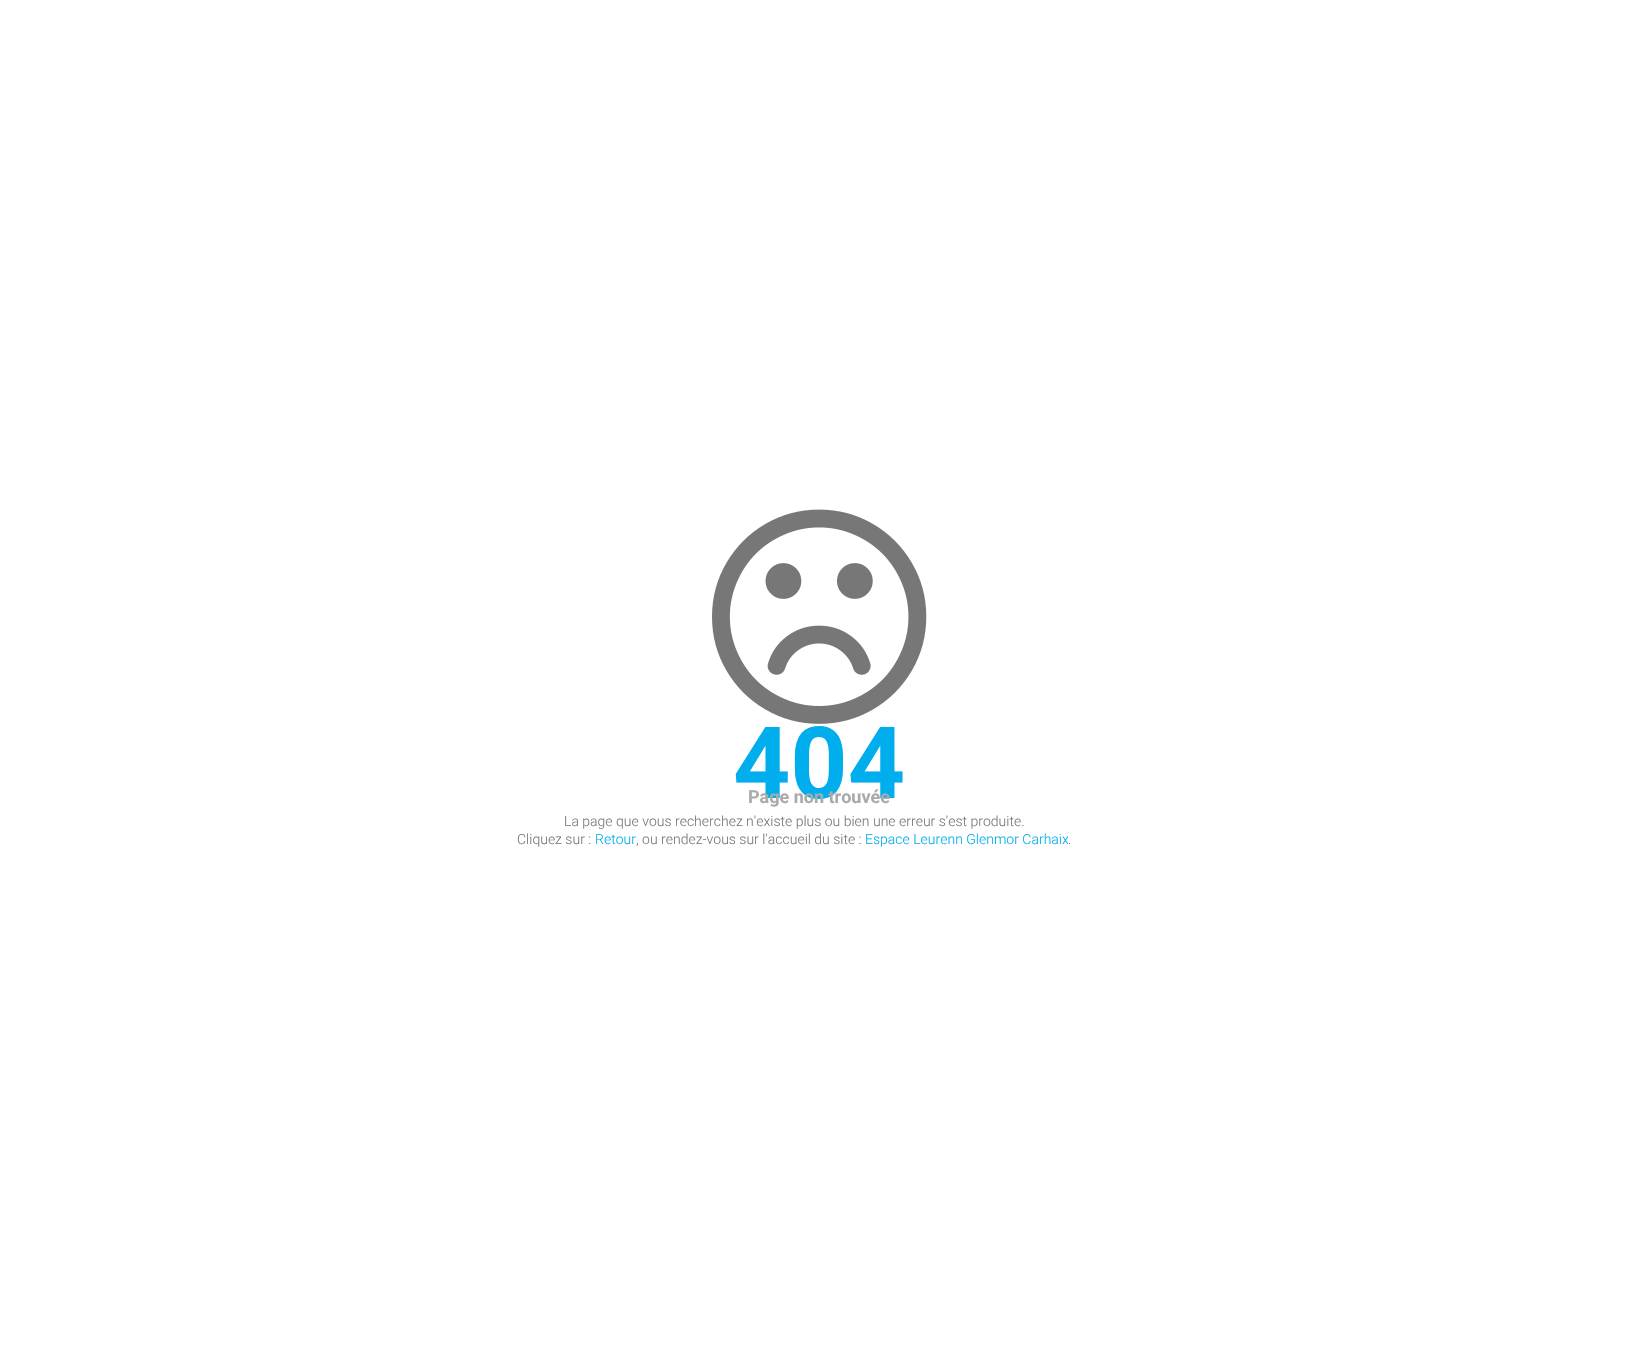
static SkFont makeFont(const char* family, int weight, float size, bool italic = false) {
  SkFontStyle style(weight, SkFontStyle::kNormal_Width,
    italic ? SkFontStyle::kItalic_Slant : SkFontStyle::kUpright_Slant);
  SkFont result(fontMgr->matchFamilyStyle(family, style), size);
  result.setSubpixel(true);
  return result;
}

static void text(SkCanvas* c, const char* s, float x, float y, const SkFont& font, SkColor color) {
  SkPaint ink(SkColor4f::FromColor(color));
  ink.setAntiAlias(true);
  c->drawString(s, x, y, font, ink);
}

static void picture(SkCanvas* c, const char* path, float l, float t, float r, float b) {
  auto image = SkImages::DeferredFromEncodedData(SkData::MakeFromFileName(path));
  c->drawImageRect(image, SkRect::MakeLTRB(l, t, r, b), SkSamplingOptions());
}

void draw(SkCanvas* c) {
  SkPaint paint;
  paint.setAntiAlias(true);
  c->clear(0xffffffff);
  picture(c, "img_01.png", 712, 509, 927, 724);
  SkFont face1 = makeFont("Roboto", 700, 100);
  text(c, "404", 733, 798, face1, 0xff00aded);
  SkFont face2 = makeFont("Roboto", 700, 18);
  text(c, "Page non trouvée", 748, 803, face2, 0xffaaaaaa);
  SkFont face3 = makeFont("Roboto", 300, 14);
  text(c, "La page que vous recherchez n'existe plus ou bien une erreur s'est produite.", 564, 826, face3, 0xff777777);
  text(c, "Cliquez sur :", 517, 844, face3, 0xff777777);
  text(c, "Retour", 595, 844, face3, 0xff00aded);
  text(c, ", ou rendez-vous sur l'accueil du site :", 636, 844, face3, 0xff777777);
  text(c, "Espace Leurenn Glenmor Carhaix", 865, 844, face3, 0xff00aded);
  text(c, ".", 1068, 844, face3, 0xff777777);
}
